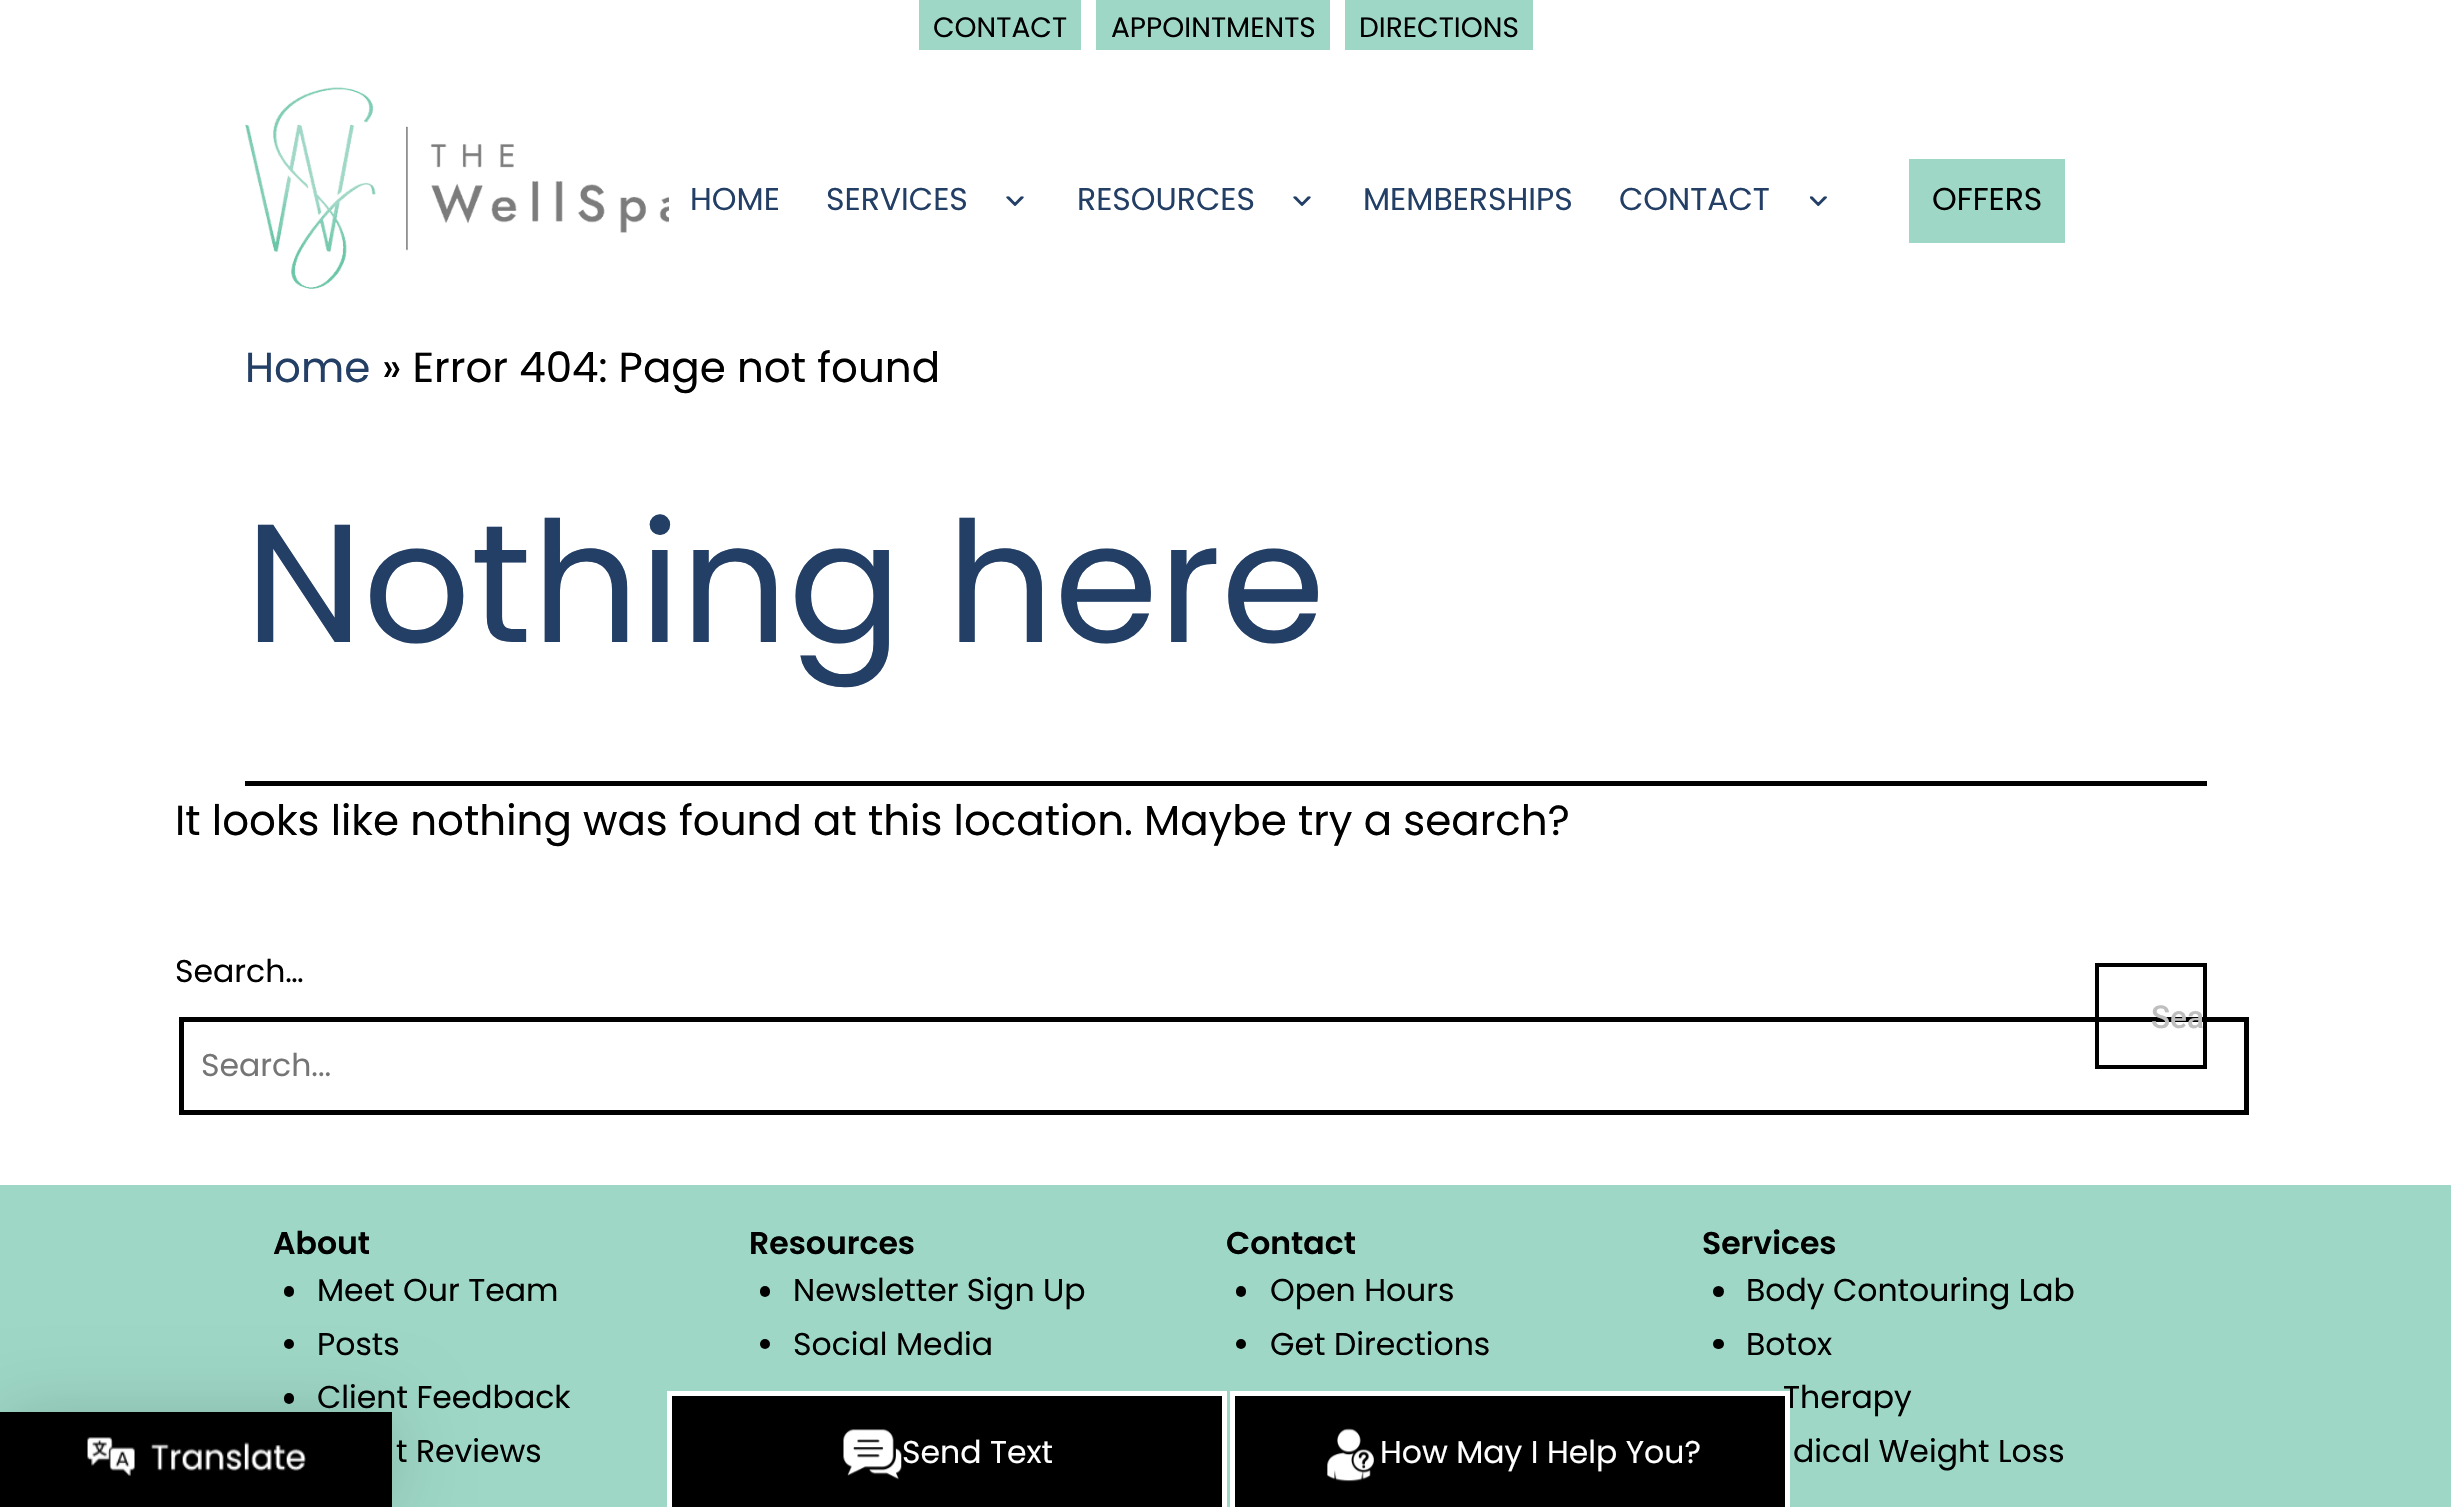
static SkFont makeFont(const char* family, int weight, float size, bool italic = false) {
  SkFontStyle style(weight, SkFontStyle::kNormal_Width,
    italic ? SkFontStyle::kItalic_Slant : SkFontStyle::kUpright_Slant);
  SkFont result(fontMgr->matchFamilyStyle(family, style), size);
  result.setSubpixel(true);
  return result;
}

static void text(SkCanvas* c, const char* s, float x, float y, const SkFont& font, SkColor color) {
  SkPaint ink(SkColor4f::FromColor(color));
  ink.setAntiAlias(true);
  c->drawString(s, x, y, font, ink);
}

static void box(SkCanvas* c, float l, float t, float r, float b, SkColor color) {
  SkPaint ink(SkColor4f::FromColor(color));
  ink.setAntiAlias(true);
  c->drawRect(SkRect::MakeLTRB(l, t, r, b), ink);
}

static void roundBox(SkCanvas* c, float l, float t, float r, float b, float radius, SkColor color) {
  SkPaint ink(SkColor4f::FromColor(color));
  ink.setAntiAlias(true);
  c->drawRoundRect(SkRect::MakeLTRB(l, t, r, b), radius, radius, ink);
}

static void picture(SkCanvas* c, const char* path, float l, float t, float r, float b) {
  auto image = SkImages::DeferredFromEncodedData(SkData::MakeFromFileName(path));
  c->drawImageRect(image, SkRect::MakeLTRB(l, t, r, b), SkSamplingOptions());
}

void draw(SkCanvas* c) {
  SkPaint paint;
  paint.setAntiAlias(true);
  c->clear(0xffffffff);
  box(c, 919, 0, 1081, 50, 0xff9ed7c6);
  SkFont face1 = makeFont("Poppins", 400, 28);
  text(c, "CONTACT", 933, 37, face1, 0xff000000);
  box(c, 1096, 0, 1330, 50, 0xff9ed7c6);
  text(c, "APPOINTMENTS", 1111, 37, face1, 0xff000000);
  box(c, 1345, 0, 1533, 50, 0xff9ed7c6);
  text(c, "DIRECTIONS", 1359, 37, face1, 0xff000000);
  picture(c, "img_01.png", 245, 87, 669, 289);
  SkFont face2 = makeFont("Poppins", 400, 31.5f);
  text(c, "HOME", 690, 210, face2, 0xff233f66);
  text(c, "SERVICES", 826, 210, face2, 0xff233f66);
  picture(c, "img_02.png", 1006, 196, 1024, 206);
  text(c, "RESOURCES", 1077, 210, face2, 0xff233f66);
  picture(c, "img_02.png", 1293, 196, 1311, 206);
  text(c, "MEMBERSHIPS", 1363, 210, face2, 0xff233f66);
  text(c, "CONTACT", 1619, 210, face2, 0xff233f66);
  picture(c, "img_03.png", 1810, 196, 1827, 207);
  box(c, 1909, 159, 2065, 243, 0xff9ed7c6);
  text(c, "OFFERS", 1932, 210, face2, 0xff000000);
  SkFont face3 = makeFont("Poppins", 400, 42);
  text(c, "Home", 245, 382, face3, 0xff233f66);
  text(c, "» Error 404: Page not found", 382, 382, face3, 0xff000000);
  box(c, 245, 781, 2207, 786, 0xff000000);
  SkFont face4 = makeFont("Poppins", 400, 168);
  text(c, "Nothing here", 245, 642, face4, 0xff233f66);
  text(c, "It looks like nothing was found at this location. Maybe try a search?", 175, 835, face3, 0xff000000);
  text(c, "Search…", 175, 982, face2, 0xff000000);
  paint.setStyle(SkPaint::kStroke_Style);
  paint.setStrokeWidth(5);
  paint.setColor(0xff000000);
  c->drawRect(SkRect::MakeLTRB(181.5f, 1019.5f, 2246.5f, 1112.5f), paint);
  paint.setStrokeWidth(4);
  c->drawRect(SkRect::MakeLTRB(2097, 965, 2205, 1067), paint);
  SkFont face5 = makeFont("Roboto", 500, 31.5f);
  text(c, "Sea", 2151, 1028, face5, 0xffbfbfbf);
  text(c, "Search...", 201, 1076, face2, 0xff757575);
  box(c, 0, 1185, 2451, 1507, 0xff9ed7c6);
  paint.setStyle(SkPaint::kFill_Style);
  c->drawCircle(289, 1344, 5, paint);
  roundBox(c, 284, 1393, 294, 1404, 5, 0xff000000);
  paint.setColor(0x26000000);
  paint.setMaskFilter(SkMaskFilter::MakeBlur(kNormal_SkBlurStyle, 36));
  c->drawRect(SkRect::MakeLTRB(0, 1412, 392, 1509), paint);
  paint.setMaskFilter(nullptr);
  box(c, 0, 1412, 392, 1507, 0xff000000);
  picture(c, "img_04.png", 87, 1437, 306, 1476);
  SkFont face6 = makeFont("Poppins", 600, 31.5f);
  text(c, "About", 273, 1254, face6, 0xff000000);
  roundBox(c, 284, 1286, 294, 1297, 5, 0xff000000);
  text(c, "Meet Our Team", 317, 1301, face2, 0xff000000);
  text(c, "Posts", 317, 1355, face2, 0xff000000);
  text(c, "Client Feedback", 317, 1408, face2, 0xff000000);
  text(c, "t Reviews", 396, 1462, face2, 0xff000000);
  text(c, "Resources", 749, 1254, face6, 0xff000000);
  roundBox(c, 760, 1286, 770, 1297, 5, 0xff000000);
  text(c, "Newsletter Sign Up", 793, 1301, face2, 0xff000000);
  paint.setColor(0xff000000);
  c->drawCircle(765, 1344, 5, paint);
  text(c, "Social Media", 793, 1355, face2, 0xff000000);
  text(c, "Contact", 1226, 1254, face6, 0xff000000);
  roundBox(c, 1236, 1286, 1246, 1297, 5, 0xff000000);
  text(c, "Open Hours", 1270, 1301, face2, 0xff000000);
  c->drawCircle(1241, 1344, 5, paint);
  text(c, "Get Directions", 1270, 1355, face2, 0xff000000);
  text(c, "Services", 1702, 1254, face6, 0xff000000);
  c->drawCircle(1718.5f, 1291.5f, 5.5f, paint);
  text(c, "Body Contouring Lab", 1746, 1301, face2, 0xff000000);
  roundBox(c, 1713, 1339, 1724, 1349, 5, 0xff000000);
  text(c, "Botox", 1746, 1355, face2, 0xff000000);
  text(c, "Therapy", 1783, 1408, face2, 0xff000000);
  text(c, "dical Weight Loss", 1793, 1462, face2, 0xff000000);
  c->drawRect(SkRect::MakeLTRB(669.5f, 1393.5f, 1224.5f, 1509.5f), paint);
  paint.setStyle(SkPaint::kStroke_Style);
  paint.setStrokeWidth(5);
  paint.setColor(0xffffffff);
  c->drawRect(SkRect::MakeLTRB(669.5f, 1393.5f, 1224.5f, 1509.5f), paint);
  picture(c, "img_05.png", 843, 1429, 902, 1480);
  text(c, "Send Text", 902, 1463, face2, 0xffffffff);
  paint.setStyle(SkPaint::kFill_Style);
  paint.setColor(0xff000000);
  c->drawRect(SkRect::MakeLTRB(1232.5f, 1393.5f, 1787.5f, 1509.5f), paint);
  paint.setStyle(SkPaint::kStroke_Style);
  paint.setColor(0xffffffff);
  c->drawRect(SkRect::MakeLTRB(1232.5f, 1393.5f, 1787.5f, 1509.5f), paint);
  picture(c, "img_06.png", 1327, 1428, 1374, 1482);
  text(c, "How May I Help You?", 1380, 1463, face2, 0xffffffff);
}
